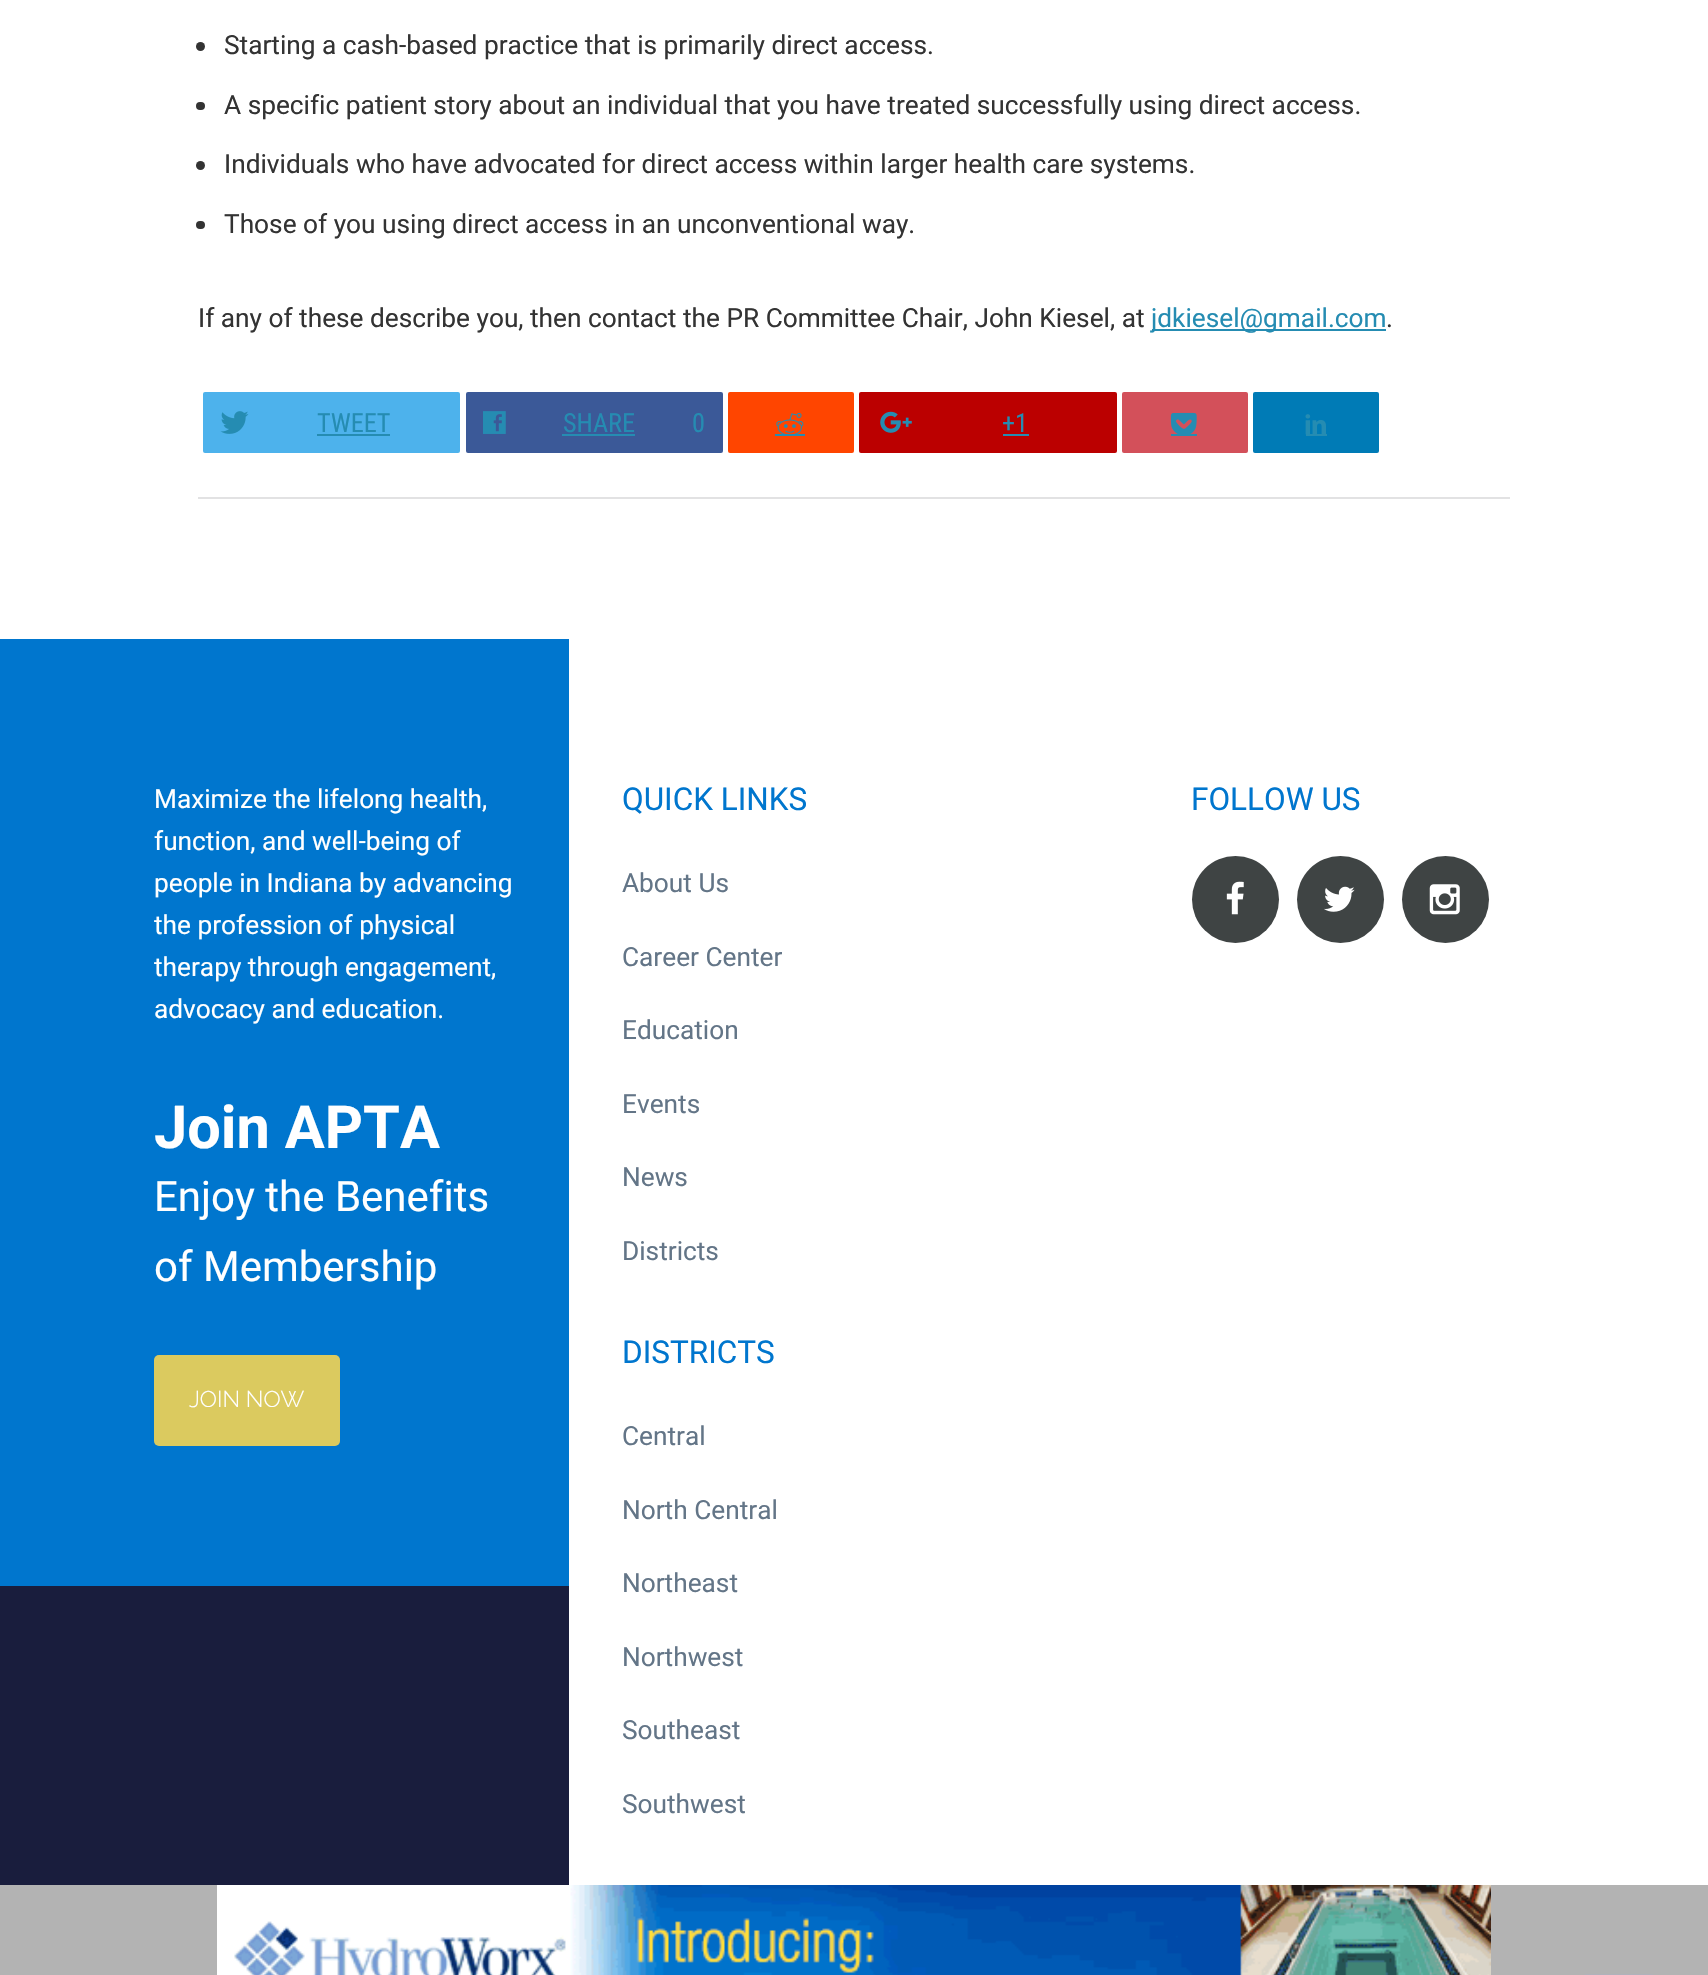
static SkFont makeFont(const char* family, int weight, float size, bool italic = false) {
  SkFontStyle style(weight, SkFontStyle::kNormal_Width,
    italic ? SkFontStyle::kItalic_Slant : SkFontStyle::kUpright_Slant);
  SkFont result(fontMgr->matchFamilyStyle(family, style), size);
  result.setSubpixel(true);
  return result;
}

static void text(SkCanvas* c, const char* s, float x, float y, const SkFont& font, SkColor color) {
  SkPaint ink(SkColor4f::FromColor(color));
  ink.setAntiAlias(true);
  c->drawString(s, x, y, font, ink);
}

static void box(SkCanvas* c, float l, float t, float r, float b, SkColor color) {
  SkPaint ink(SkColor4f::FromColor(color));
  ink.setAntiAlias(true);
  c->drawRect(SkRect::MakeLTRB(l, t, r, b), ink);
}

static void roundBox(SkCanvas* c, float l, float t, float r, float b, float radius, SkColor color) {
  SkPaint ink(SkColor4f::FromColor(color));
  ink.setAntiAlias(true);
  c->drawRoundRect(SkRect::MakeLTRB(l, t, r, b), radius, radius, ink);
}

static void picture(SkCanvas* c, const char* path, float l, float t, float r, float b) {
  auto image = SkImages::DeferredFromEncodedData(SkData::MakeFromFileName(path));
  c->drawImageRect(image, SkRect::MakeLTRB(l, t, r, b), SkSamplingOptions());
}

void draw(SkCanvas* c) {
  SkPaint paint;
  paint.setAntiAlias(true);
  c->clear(0xffffffff);
  box(c, 198, 497, 1510, 499, 0xffe2e2e3);
  paint.setColor(0xff333333);
  c->drawCircle(200.5f, 46.5f, 4.5f, paint);
  SkFont face1 = makeFont("Roboto", 400, 26.25f);
  text(c, "Starting a cash-based practice that is primarily direct access.", 224, 54, face1, 0xff333333);
  roundBox(c, 196, 102, 205, 110, 4, 0xff333333);
  text(c, "A specific patient story about an individual that you have treated successfully using direct access.", 224, 114, face1, 0xff333333);
  c->drawCircle(200.5f, 165.5f, 4.5f, paint);
  text(c, "Individuals who have advocated for direct access within larger health care systems.", 224, 173, face1, 0xff333333);
  roundBox(c, 196, 221, 205, 229, 4, 0xff333333);
  text(c, "Those of you using direct access in an unconventional way.", 224, 233, face1, 0xff333333);
  text(c, "If any of these describe you, then contact the PR Committee Chair, John Kiesel, at", 198, 327, face1, 0xff333333);
  box(c, 1152, 329, 1386, 331, 0xff258cb2);
  text(c, "jdkiesel@gmail.com", 1151, 327, face1, 0xff258cb2);
  text(c, ".", 1386, 327, face1, 0xff333333);
  roundBox(c, 203, 392, 460, 453, 2, 0xff4db2ec);
  picture(c, "img_01.png", 220, 411, 249, 434);
  SkFont face2 = makeFont("Roboto Condensed", 400, 26.25f);
  text(c, "TWEET", 317, 432, face2, 0xff258cb2);
  box(c, 317, 434, 390, 436, 0xff258cb2);
  roundBox(c, 466, 392, 723, 453, 2, 0xff3b5998);
  picture(c, "img_02.png", 483, 411, 506, 434);
  text(c, "SHARE", 563, 432, face2, 0xff258cb2);
  box(c, 562, 434, 635, 436, 0xff258cb2);
  text(c, "0", 692, 432, face2, 0xff258cb2);
  roundBox(c, 728, 392, 854, 453, 2, 0xffff4500);
  picture(c, "img_03.png", 776, 412, 804, 434);
  box(c, 775, 434, 805, 436, 0xff258cb2);
  roundBox(c, 859, 392, 1117, 453, 2, 0xffbb0000);
  picture(c, "img_04.png", 880, 411, 912, 433);
  text(c, "+1", 1002, 432, face2, 0xff258cb2);
  box(c, 1003, 434, 1029, 436, 0xff258cb2);
  roundBox(c, 1122, 392, 1248, 453, 2, 0xffd3505a);
  picture(c, "img_05.png", 1170, 412, 1197, 434);
  box(c, 1171, 434, 1197, 436, 0xff258cb2);
  roundBox(c, 1253, 392, 1379, 453, 2, 0xff007bb6);
  box(c, 1306, 434, 1327, 436, 0xff258cb2);
  picture(c, "img_06.png", 1305, 414, 1326, 435);
  box(c, 0, 639, 569, 1586, 0xff0076ce);
  text(c, "Maximize the lifelong health,", 154, 808, face1, 0xffffffff);
  text(c, "function, and well-being of", 154, 850, face1, 0xffffffff);
  text(c, "people in Indiana by advancing", 154, 892, face1, 0xffffffff);
  text(c, "the profession of physical", 154, 934, face1, 0xffffffff);
  text(c, "therapy through engagement,", 154, 976, face1, 0xffffffff);
  text(c, "advocacy and education.", 154, 1018, face1, 0xffffffff);
  SkFont face3 = makeFont("Roboto", 700, 59.5f);
  text(c, "Join APTA", 154, 1148, face3, 0xffffffff);
  SkFont face4 = makeFont("Roboto", 400, 42);
  text(c, "Enjoy the Benefits", 154, 1211, face4, 0xffffffff);
  text(c, "of Membership", 154, 1281, face4, 0xffffffff);
  roundBox(c, 154, 1355, 340, 1446, 5, 0xffdbca5f);
  SkFont face5 = makeFont("Raleway", 300, 22.75f);
  text(c, "JOIN NOW", 189, 1407, face5, 0xffffffff);
  box(c, 0, 1586, 569, 1885, 0xff191d3d);
  SkFont face6 = makeFont("Roboto", 400, 31.5f);
  text(c, "QUICK LINKS", 622, 810, face6, 0xff0076ce);
  text(c, "About Us", 622, 892, face1, 0xff637587);
  text(c, "Career Center", 622, 966, face1, 0xff637587);
  text(c, "Education", 622, 1039, face1, 0xff637587);
  text(c, "Events", 622, 1113, face1, 0xff637587);
  text(c, "News", 622, 1186, face1, 0xff637587);
  text(c, "Districts", 622, 1260, face1, 0xff637587);
  text(c, "DISTRICTS", 622, 1363, face6, 0xff0076ce);
  text(c, "Central", 622, 1445, face1, 0xff637587);
  text(c, "North Central", 622, 1519, face1, 0xff637587);
  text(c, "Northeast", 622, 1592, face1, 0xff637587);
  text(c, "Northwest", 622, 1666, face1, 0xff637587);
  text(c, "Southeast", 622, 1739, face1, 0xff637587);
  text(c, "Southwest", 622, 1813, face1, 0xff637587);
  text(c, "FOLLOW US", 1191, 810, face6, 0xff0076ce);
  paint.setColor(0xff3f4444);
  c->drawCircle(1235.5f, 899.5f, 43.5f, paint);
  picture(c, "img_07.png", 1226, 881, 1244, 915);
  c->drawCircle(1340.5f, 899.5f, 43.5f, paint);
  picture(c, "img_08.png", 1324, 886, 1355, 912);
  c->drawCircle(1445.5f, 899.5f, 43.5f, paint);
  picture(c, "img_09.png", 1429, 884, 1460, 915);
  box(c, 0, 1885, 1708, 1975, 0xffb3b3b3);
  picture(c, "img_10.png", 217, 1885, 1491, 1975);
  roundBox(c, 1582, 1974, 1656, 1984, 9, 0xffb0b2bb);
}
